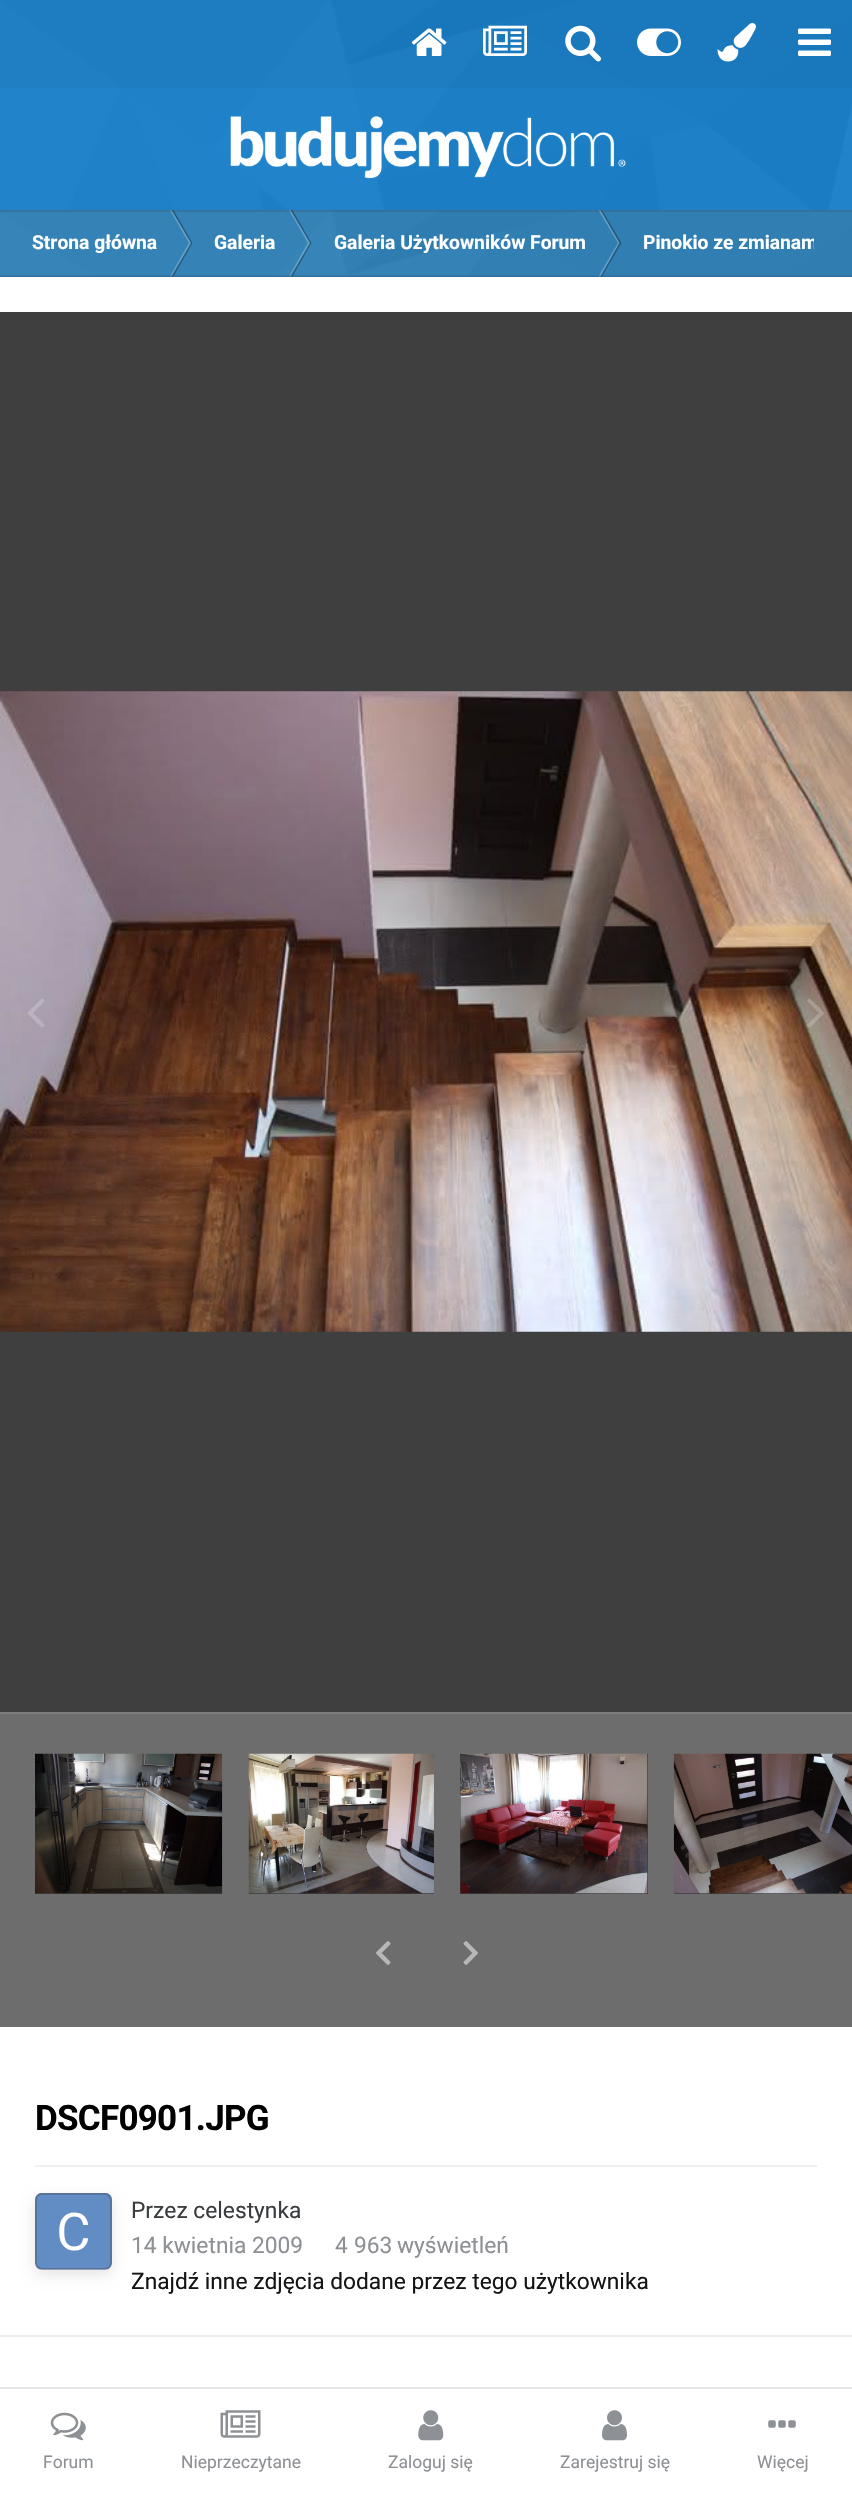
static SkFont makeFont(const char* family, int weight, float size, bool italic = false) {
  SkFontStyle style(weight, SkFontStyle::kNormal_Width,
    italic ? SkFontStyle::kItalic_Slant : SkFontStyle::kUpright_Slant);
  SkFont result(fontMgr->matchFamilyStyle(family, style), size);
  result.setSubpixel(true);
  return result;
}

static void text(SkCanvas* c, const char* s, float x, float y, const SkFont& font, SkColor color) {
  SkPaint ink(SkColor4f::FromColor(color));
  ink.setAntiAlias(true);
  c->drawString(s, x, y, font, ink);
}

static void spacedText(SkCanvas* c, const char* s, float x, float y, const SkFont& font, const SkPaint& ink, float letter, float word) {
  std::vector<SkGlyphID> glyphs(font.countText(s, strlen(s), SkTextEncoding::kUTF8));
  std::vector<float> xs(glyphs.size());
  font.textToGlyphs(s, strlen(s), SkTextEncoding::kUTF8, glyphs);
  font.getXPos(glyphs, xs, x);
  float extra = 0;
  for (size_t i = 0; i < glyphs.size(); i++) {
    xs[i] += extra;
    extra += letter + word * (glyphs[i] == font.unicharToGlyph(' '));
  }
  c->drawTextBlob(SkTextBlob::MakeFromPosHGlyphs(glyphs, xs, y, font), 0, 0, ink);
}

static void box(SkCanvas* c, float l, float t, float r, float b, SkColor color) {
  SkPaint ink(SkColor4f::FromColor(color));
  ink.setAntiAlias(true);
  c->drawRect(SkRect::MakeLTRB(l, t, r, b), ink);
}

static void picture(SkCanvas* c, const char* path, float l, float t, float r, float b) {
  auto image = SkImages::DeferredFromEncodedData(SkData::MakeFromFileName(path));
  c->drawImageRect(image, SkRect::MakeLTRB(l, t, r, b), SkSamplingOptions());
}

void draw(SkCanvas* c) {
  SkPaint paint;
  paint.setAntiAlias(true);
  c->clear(0xffffffff);
  box(c, 0, 0, 852, 210, 0xff177ec9);
  picture(c, "img_01.png", 0, 0, 852, 210);
  box(c, 0, 0, 852, 88, 0x0a000000);
  picture(c, "img_02.png", 411, 28, 447, 56);
  picture(c, "img_03.png", 483, 25, 527, 56);
  picture(c, "img_04.png", 565, 25, 601, 62);
  picture(c, "img_05.png", 637, 28, 681, 56);
  picture(c, "img_06.png", 717, 23, 756, 62);
  picture(c, "img_07.png", 798, 28, 831, 56);
  picture(c, "img_08.png", 230, 116, 626, 179);
  box(c, 0, 210, 852, 277, 0xff2e81b6);
  picture(c, "img_09.png", 0, 210, 852, 276);
  paint.setColor(0xff67a2c8);
  c->drawPath(SkPathBuilder().moveTo(170, 210).lineTo(171.5f, 210).lineTo(191, 243).lineTo(189, 243).close().detach(), paint);
  paint.setColor(0x4d000000);
  c->drawPath(SkPathBuilder().moveTo(171.5f, 210).lineTo(173.5f, 210).lineTo(192.5f, 243).lineTo(191, 243).close().detach(), paint);
  paint.setColor(0xff67a3c8);
  c->drawPath(SkPathBuilder().moveTo(289, 210).lineTo(290.5f, 210).lineTo(310, 243).lineTo(308, 243).close().detach(), paint);
  paint.setColor(0x4d000000);
  c->drawPath(SkPathBuilder().moveTo(290.5f, 210).lineTo(292.5f, 210).lineTo(311.5f, 243).lineTo(310, 243).close().detach(), paint);
  paint.setColor(0xff649fc5);
  c->drawPath(SkPathBuilder().moveTo(598.5f, 210).lineTo(600.5f, 210).lineTo(619.5f, 243).lineTo(618, 243).close().detach(), paint);
  paint.setColor(0x4d000000);
  c->drawPath(SkPathBuilder().moveTo(600.5f, 210).lineTo(602, 210).lineTo(621.5f, 243).lineTo(619.5f, 243).close().detach(), paint);
  box(c, 0, 210, 852, 212, 0x333a3d40);
  paint.setColor(0xff67a2c8);
  c->drawPath(SkPathBuilder().moveTo(170, 276.5f).lineTo(171.5f, 276.5f).lineTo(191, 243).lineTo(189, 243).close().detach(), paint);
  paint.setColor(0x4d000000);
  c->drawPath(SkPathBuilder().moveTo(171.5f, 276.5f).lineTo(173.5f, 276.5f).lineTo(192.5f, 243).lineTo(191, 243).close().detach(), paint);
  paint.setColor(0xff69a4ca);
  c->drawPath(SkPathBuilder().moveTo(289, 276.5f).lineTo(290.5f, 276.5f).lineTo(310, 243).lineTo(308, 243).close().detach(), paint);
  paint.setColor(0x4d000000);
  c->drawPath(SkPathBuilder().moveTo(290.5f, 276.5f).lineTo(292.5f, 276.5f).lineTo(311.5f, 243).lineTo(310, 243).close().detach(), paint);
  paint.setColor(0x40ffffff);
  c->drawPath(SkPathBuilder().moveTo(598.5f, 276.5f).lineTo(600.5f, 276.5f).lineTo(619.5f, 243).lineTo(618, 243).close().detach(), paint);
  paint.setColor(0x4d000000);
  c->drawPath(SkPathBuilder().moveTo(600.5f, 276.5f).lineTo(602, 276.5f).lineTo(621.5f, 243).lineTo(619.5f, 243).close().detach(), paint);
  box(c, 0, 275, 852, 277, 0x333a3d40);
  SkFont face1 = makeFont("Roboto", 700, 19.25f);
  text(c, "Strona główna", 32, 249, face1, 0xffffffff);
  text(c, "Galeria", 214, 249, face1, 0xffffffff);
  text(c, "Galeria Użytkowników Forum", 334, 249, face1, 0xffffffff);
  c->save();
  c->clipRect(SkRect::MakeLTRB(0, 210, 814, 277));
  text(c, "Pinokio ze zmianam", 643, 249, face1, 0xffffffff);
  c->restore();
  box(c, 0, 312, 852, 1712, 0xff3f3f3f);
  picture(c, "img_10.png", 0, 691, 852, 1332);
  picture(c, "img_11.png", 27, 998, 45, 1028);
  picture(c, "img_12.png", 807, 998, 824, 1028);
  box(c, 0, 1714, 852, 2027, 0xff6d6d6d);
  box(c, 0, 1712, 852, 1714, 0xff7c7c7c);
  box(c, 35, 1893, 222, 1894, 0xff3d3d3d);
  picture(c, "img_13.png", 35, 1753, 223, 1894);
  box(c, 249, 1893, 434, 1894, 0xff3d3d3d);
  picture(c, "img_14.png", 248, 1753, 434, 1894);
  box(c, 460, 1754, 648, 1894, 0xff3d3d3d);
  picture(c, "img_15.png", 460, 1753, 648, 1894);
  box(c, 674, 1893, 852, 1894, 0xff3d3d3d);
  picture(c, "img_16.png", 673, 1753, 852, 1894);
  picture(c, "img_17.png", 376, 1941, 391, 1965);
  picture(c, "img_18.png", 463, 1941, 478, 1965);
  SkFont face2 = makeFont("Roboto", 700, 35);
  paint.setColor(0xff000000);
  spacedText(c, "DSCF0901.JPG", 35, 2130, face2, paint, -0.75f, 0);
  box(c, 35, 2165, 817, 2167, 0xffefeff0);
  picture(c, "img_19.png", 35, 2193, 112, 2270);
  c->save();
  c->clipPath(SkPathBuilder(SkPathFillType::kEvenOdd).moveTo(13, 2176).lineTo(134, 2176).lineTo(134, 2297).lineTo(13, 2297).close().moveTo(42, 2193).lineTo(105, 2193).cubicTo(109, 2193, 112, 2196, 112, 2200).lineTo(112, 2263).cubicTo(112, 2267, 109, 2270, 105, 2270).lineTo(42, 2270).cubicTo(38, 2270, 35, 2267, 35, 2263).lineTo(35, 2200).cubicTo(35, 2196, 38, 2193, 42, 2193).close().detach(), true);
  paint.setColor(0x1a000000);
  paint.setMaskFilter(SkMaskFilter::MakeBlur(kNormal_SkBlurStyle, 7));
  c->drawRoundRect(SkRect::MakeLTRB(35, 2198, 112, 2275), 7, 7, paint);
  paint.setMaskFilter(nullptr);
  c->restore();
  paint.setStyle(SkPaint::kStroke_Style);
  paint.setStrokeWidth(2);
  paint.setColor(0x4d3a3d40);
  c->drawRoundRect(SkRect::MakeLTRB(36, 2194, 111, 2269), 6, 6, paint);
  SkFont face3 = makeFont("Roboto", 400, 22.75f);
  text(c, "Przez celestynka", 131, 2218, face3, 0xff3a3d40);
  text(c, "14 kwietnia 2009", 131, 2253, face3, 0xff8d9094);
  text(c, "4", 335, 2253, face3, 0xff8d9094);
  paint.setStyle(SkPaint::kFill_Style);
  paint.setColor(0xff8d9094);
  spacedText(c, "963 wyświetleń", 354, 2253, face3, paint, 0, -1);
  text(c, "Znajdź inne zdjęcia dodane przez tego użytkownika", 131, 2289, face3, 0xff141414);
  box(c, 0, 2335, 852, 2337, 0xffebecec);
  box(c, 0, 2387, 852, 2389, 0xffe6e6e6);
  picture(c, "img_20.png", 50, 2412, 86, 2441);
  SkFont face4 = makeFont("Roboto", 400, 17.5f);
  text(c, "Forum", 43, 2468, face4, 0xff8d9094);
  picture(c, "img_21.png", 220, 2410, 261, 2438);
  text(c, "Nieprzeczytane", 181, 2468, face4, 0xff8d9094);
  picture(c, "img_22.png", 418, 2410, 444, 2441);
  text(c, "Zaloguj się", 388, 2468, face4, 0xff8d9094);
  picture(c, "img_23.png", 602, 2410, 627, 2441);
  text(c, "Zarejestruj się", 560, 2468, face4, 0xff8d9094);
  picture(c, "img_24.png", 768, 2420, 796, 2428);
  text(c, "Więcej", 757, 2468, face4, 0xff8d9094);
}
